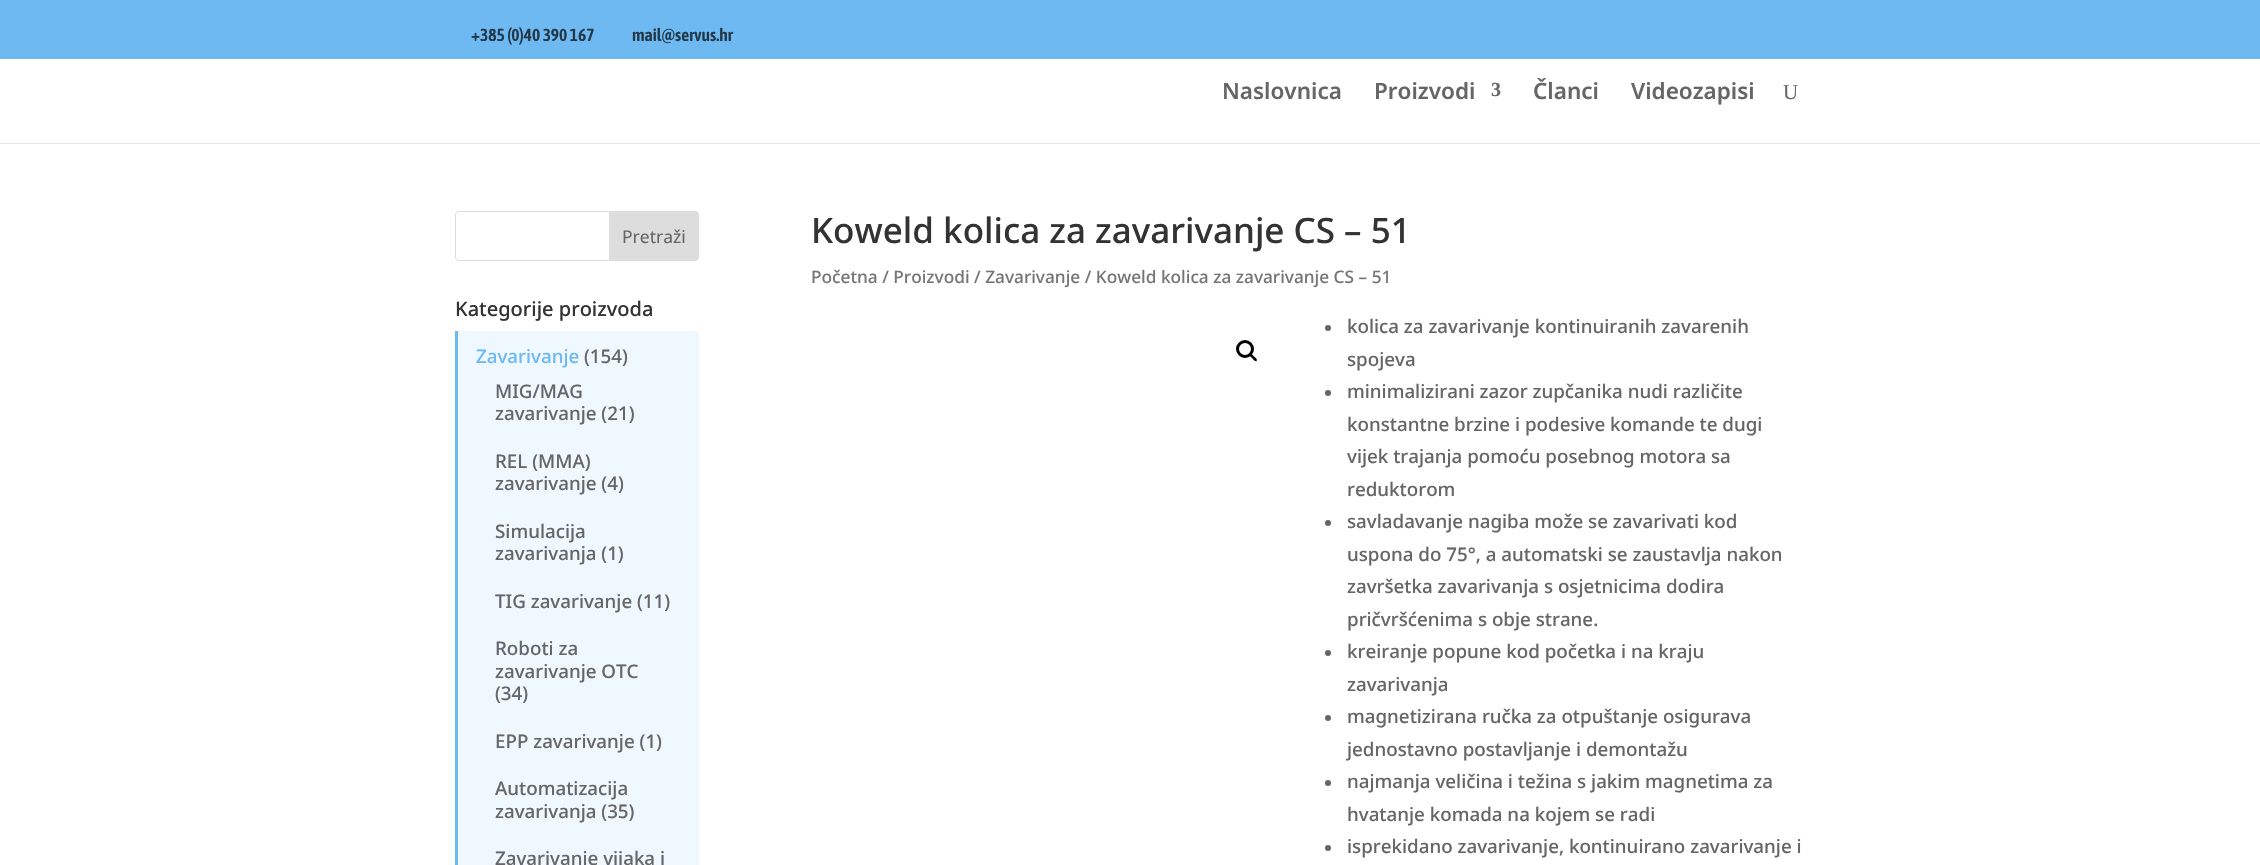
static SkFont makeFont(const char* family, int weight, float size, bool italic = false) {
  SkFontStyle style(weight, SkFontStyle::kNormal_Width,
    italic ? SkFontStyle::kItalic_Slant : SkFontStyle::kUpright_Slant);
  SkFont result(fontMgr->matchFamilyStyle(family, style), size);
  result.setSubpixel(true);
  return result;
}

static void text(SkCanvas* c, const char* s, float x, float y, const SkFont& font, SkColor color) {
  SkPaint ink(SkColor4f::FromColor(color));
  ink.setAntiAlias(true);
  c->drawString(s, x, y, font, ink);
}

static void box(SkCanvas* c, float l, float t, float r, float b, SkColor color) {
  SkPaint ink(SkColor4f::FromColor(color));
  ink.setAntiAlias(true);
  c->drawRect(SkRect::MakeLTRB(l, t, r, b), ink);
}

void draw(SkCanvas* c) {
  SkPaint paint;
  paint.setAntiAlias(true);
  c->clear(0xffffffff);
  box(c, 0, 0, 2260, 59, 0xff6fb9f2);
  SkFont face1 = makeFont("Asap Condensed", 600, 17.5f);
  text(c, "+385 (0)40 390 167", 471, 41, face1, 0xff213849);
  text(c, "mail@servus.hr", 632, 41, face1, 0xff213849);
  box(c, 0, 143, 2260, 144, 0xffe6e6e6);
  SkFont face2 = makeFont("Noto Sans", 600, 22.5f);
  text(c, "Naslovnica", 1222, 99, face2, 0xff666666);
  text(c, "Proizvodi", 1374, 99, face2, 0xff666666);
  SkFont face3 = makeFont("Liberation Serif", 700, 20);
  text(c, "3", 1491, 96, face3, 0xff666666);
  text(c, "Članci", 1533, 99, face2, 0xff666666);
  text(c, "Videozapisi", 1631, 99, face2, 0xff666666);
  SkFont face4 = makeFont("Liberation Serif", 400, 21);
  text(c, "U", 1783, 99, face4, 0xff666666);
  paint.setStyle(SkPaint::kStroke_Style);
  paint.setStrokeWidth(1);
  paint.setColor(0xffdddddd);
  c->drawRoundRect(SkRect::MakeLTRB(455.5f, 211.5f, 698.5f, 260.5f), 3.5f, 3.5f, paint);
  paint.setStyle(SkPaint::kFill_Style);
  c->drawPath(SkPathBuilder().moveTo(609.5f, 211.5f).lineTo(695, 211.5f).cubicTo(697, 211.5f, 698.5f, 213, 698.5f, 215).lineTo(698.5f, 257).cubicTo(698.5f, 259, 697, 260.5f, 695, 260.5f).lineTo(609.5f, 260.5f).close().detach(), paint);
  paint.setStyle(SkPaint::kStroke_Style);
  c->drawPath(SkPathBuilder().moveTo(609.5f, 211.5f).lineTo(695, 211.5f).cubicTo(697, 211.5f, 698.5f, 213, 698.5f, 215).lineTo(698.5f, 257).cubicTo(698.5f, 259, 697, 260.5f, 695, 260.5f).lineTo(609.5f, 260.5f).close().detach(), paint);
  SkFont face5 = makeFont("Noto Sans", 400, 17.5f);
  text(c, "Pretraži", 622, 243, face5, 0xff666666);
  SkFont face6 = makeFont("Noto Sans", 500, 20);
  text(c, "Kategorije proizvoda", 455, 316, face6, 0xff333333);
  box(c, 458, 331, 699, 865, 0xffeff8ff);
  box(c, 455, 331, 458, 865, 0xff6fb9f2);
  SkFont face7 = makeFont("Noto Sans", 500, 18.75f);
  text(c, "Zavarivanje", 476, 363, face7, 0xff6fb9f2);
  text(c, "(154)", 584, 363, face7, 0xff666666);
  text(c, "MIG/MAG", 495, 398, face7, 0xff666666);
  text(c, "zavarivanje (21)", 495, 420, face7, 0xff666666);
  text(c, "REL (MMA)", 495, 468, face7, 0xff666666);
  text(c, "zavarivanje (4)", 495, 490, face7, 0xff666666);
  text(c, "Simulacija", 495, 538, face7, 0xff666666);
  text(c, "zavarivanja (1)", 495, 560, face7, 0xff666666);
  text(c, "TIG zavarivanje (11)", 495, 608, face7, 0xff666666);
  text(c, "Roboti za", 495, 655, face7, 0xff666666);
  text(c, "zavarivanje OTC", 495, 678, face7, 0xff666666);
  text(c, "(34)", 495, 700, face7, 0xff666666);
  text(c, "EPP zavarivanje (1)", 495, 748, face7, 0xff666666);
  text(c, "Automatizacija", 495, 795, face7, 0xff666666);
  text(c, "zavarivanja (35)", 495, 818, face7, 0xff666666);
  text(c, "Zavarivanje vijaka i", 495, 865, face7, 0xff666666);
  SkFont face8 = makeFont("Noto Sans", 500, 35);
  text(c, "Koweld kolica za zavarivanje CS – 51", 811, 243, face8, 0xff333333);
  SkFont face9 = makeFont("Noto Sans", 500, 17.25f);
  text(c, "Početna / Proizvodi / Zavarivanje / Koweld kolica za zavarivanje CS – 51", 811, 283, face9, 0xff767676);
  paint.setStrokeWidth(3);
  paint.setColor(0xff000000);
  c->drawCircle(1245, 349, 7.5f, paint);
  paint.setStyle(SkPaint::kFill_Style);
  c->drawPath(SkPathBuilder().moveTo(1249.5f, 353.5f).cubicTo(1251, 352.5f, 1253, 355.5f, 1254, 356.5f).cubicTo(1255, 357, 1258, 359.5f, 1256.5f, 361).cubicTo(1255, 362, 1253, 359, 1252, 358).cubicTo(1251.5f, 357.5f, 1248, 355, 1249.5f, 353.5f).close().detach(), paint);
  paint.setColor(0xff666666);
  c->drawCircle(1328, 328, 3, paint);
  text(c, "kolica za zavarivanje kontinuiranih zavarenih", 1347, 333, face7, 0xff666666);
  text(c, "spojeva", 1347, 366, face7, 0xff666666);
  c->drawCircle(1328, 393, 3, paint);
  text(c, "minimalizirani zazor zupčanika nudi različite", 1347, 398, face7, 0xff666666);
  text(c, "konstantne brzine i podesive komande te dugi", 1347, 431, face7, 0xff666666);
  text(c, "vijek trajanja pomoću posebnog motora sa", 1347, 463, face7, 0xff666666);
  text(c, "reduktorom", 1347, 496, face7, 0xff666666);
  c->drawCircle(1328, 523, 3, paint);
  text(c, "savladavanje nagiba može se zavarivati kod", 1347, 528, face7, 0xff666666);
  text(c, "uspona do 75°, a automatski se zaustavlja nakon", 1347, 561, face7, 0xff666666);
  text(c, "završetka zavarivanja s osjetnicima dodira", 1347, 593, face7, 0xff666666);
  text(c, "pričvršćenima s obje strane.", 1347, 626, face7, 0xff666666);
  c->drawCircle(1328, 653, 3, paint);
  text(c, "kreiranje popune kod početka i na kraju", 1347, 658, face7, 0xff666666);
  text(c, "zavarivanja", 1347, 691, face7, 0xff666666);
  c->drawCircle(1328, 718, 3, paint);
  text(c, "magnetizirana ručka za otpuštanje osigurava", 1347, 723, face7, 0xff666666);
  text(c, "jednostavno postavljanje i demontažu", 1347, 756, face7, 0xff666666);
  c->drawCircle(1328, 783, 3, paint);
  text(c, "najmanja veličina i težina s jakim magnetima za", 1347, 788, face7, 0xff666666);
  text(c, "hvatanje komada na kojem se radi", 1347, 821, face7, 0xff666666);
  c->drawCircle(1328, 848, 3, paint);
  text(c, "isprekidano zavarivanje, kontinuirano zavarivanje i", 1347, 853, face7, 0xff666666);
}
